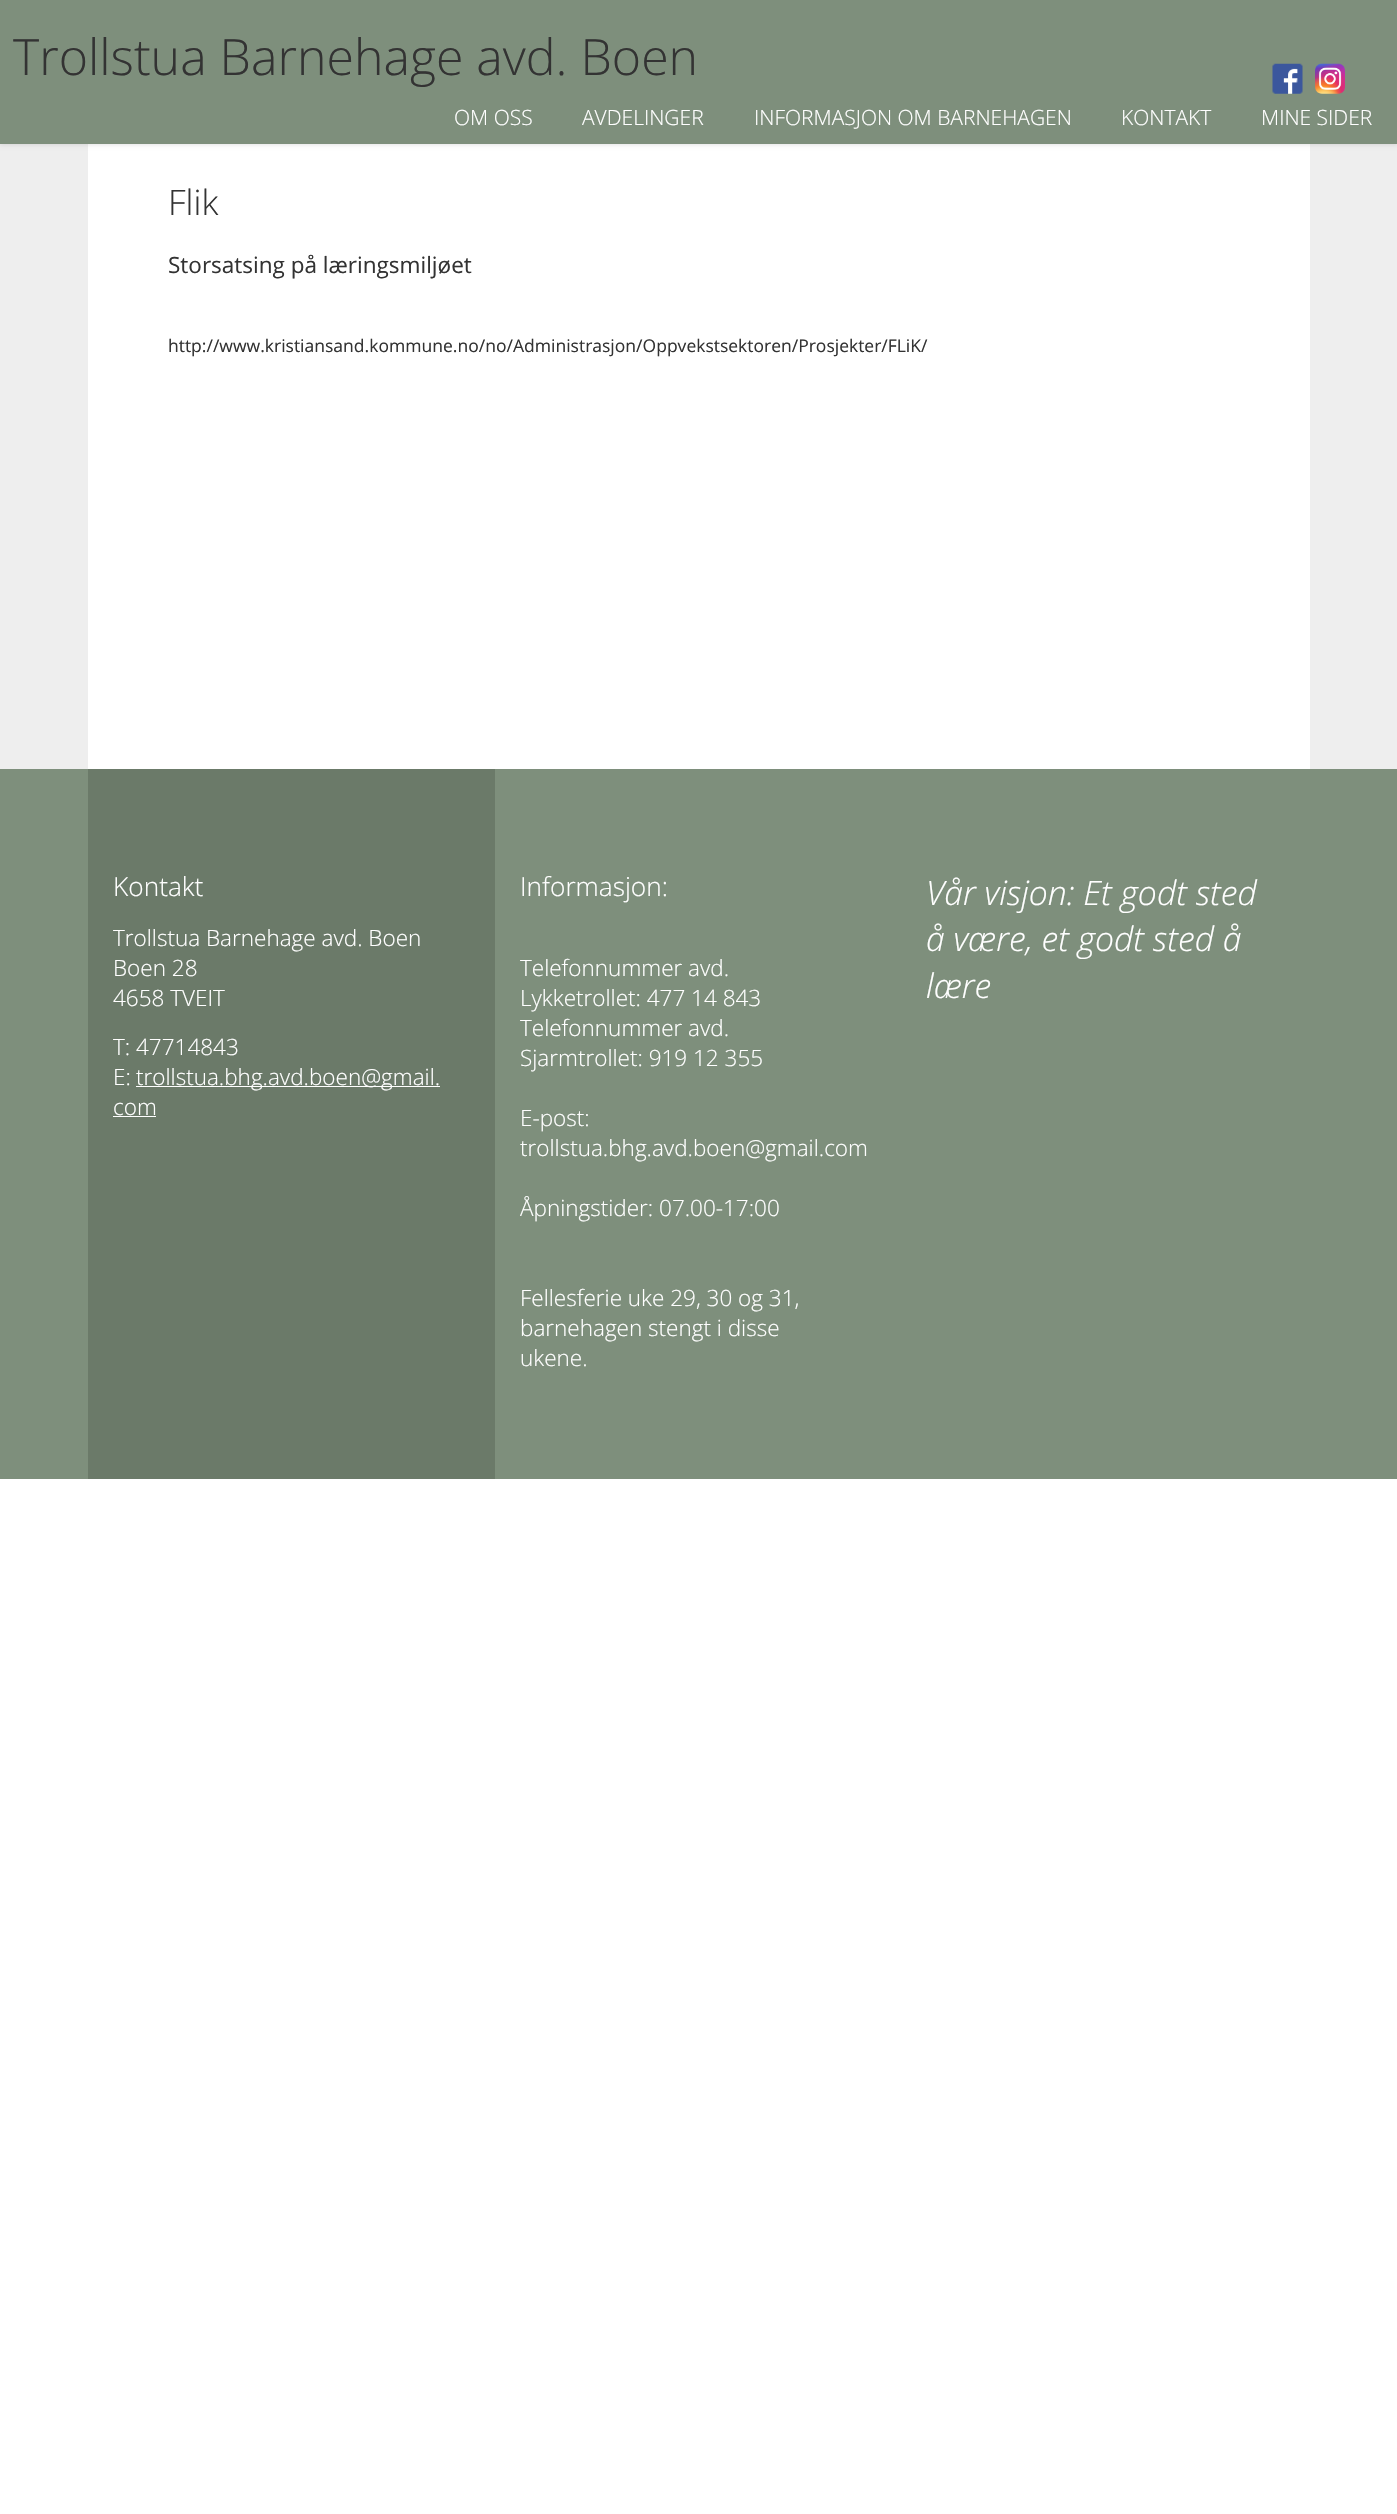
static SkFont makeFont(const char* family, int weight, float size, bool italic = false) {
  SkFontStyle style(weight, SkFontStyle::kNormal_Width,
    italic ? SkFontStyle::kItalic_Slant : SkFontStyle::kUpright_Slant);
  SkFont result(fontMgr->matchFamilyStyle(family, style), size);
  result.setSubpixel(true);
  return result;
}

static void text(SkCanvas* c, const char* s, float x, float y, const SkFont& font, SkColor color) {
  SkPaint ink(SkColor4f::FromColor(color));
  ink.setAntiAlias(true);
  c->drawString(s, x, y, font, ink);
}

static void box(SkCanvas* c, float l, float t, float r, float b, SkColor color) {
  SkPaint ink(SkColor4f::FromColor(color));
  ink.setAntiAlias(true);
  c->drawRect(SkRect::MakeLTRB(l, t, r, b), ink);
}

static void picture(SkCanvas* c, const char* path, float l, float t, float r, float b) {
  auto image = SkImages::DeferredFromEncodedData(SkData::MakeFromFileName(path));
  c->drawImageRect(image, SkRect::MakeLTRB(l, t, r, b), SkSamplingOptions());
}

void draw(SkCanvas* c) {
  SkPaint paint;
  paint.setAntiAlias(true);
  c->clear(0xffffffff);
  box(c, 0, 144, 1397, 769, 0xffeeeeee);
  box(c, 88, 144, 1310, 769, 0xffffffff);
  paint.setColor(0x1a000000);
  paint.setMaskFilter(SkMaskFilter::MakeBlur(kNormal_SkBlurStyle, 2));
  c->drawRect(SkRect::MakeLTRB(0, 1, 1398, 145), paint);
  paint.setMaskFilter(nullptr);
  box(c, 0, 0, 1397, 144, 0xff7e8f7c);
  SkFont face1 = makeFont("Open Sans", 300, 50);
  text(c, "Trollstua Barnehage avd. Boen", 13, 75, face1, 0xff333333);
  picture(c, "img_01.png", 1272, 63, 1303, 94);
  picture(c, "img_02.png", 1315, 63, 1345, 94);
  SkFont face2 = makeFont("Open Sans", 300, 21);
  text(c, "OM OSS", 454, 125, face2, 0xffffffff);
  text(c, "AVDELINGER", 582, 125, face2, 0xffffffff);
  text(c, "INFORMASJON OM BARNEHAGEN", 754, 125, face2, 0xffffffff);
  text(c, "KONTAKT", 1121, 125, face2, 0xffffffff);
  text(c, "MINE SIDER", 1261, 125, face2, 0xffffffff);
  SkFont face3 = makeFont("Open Sans", 300, 35);
  text(c, "Flik", 168, 215, face3, 0xff333333);
  SkFont face4 = makeFont("Open Sans", 400, 22.5f);
  text(c, "Storsatsing på læringsmiljøet", 168, 273, face4, 0xff333333);
  SkFont face5 = makeFont("Open Sans", 400, 17.5f);
  text(c, "http://www.kristiansand.kommune.no/no/Administrasjon/Oppvekstsektoren/Prosjekter/FLiK/", 168, 352, face5, 0xff333333);
  box(c, 0, 769, 1397, 1479, 0xff7e8f7c);
  box(c, 88, 769, 495, 1479, 0xff6b7a69);
  SkFont face6 = makeFont("Open Sans", 300, 26.25f);
  text(c, "Kontakt", 113, 896, face6, 0xffffffff);
  SkFont face7 = makeFont("Open Sans", 300, 22.5f);
  text(c, "Trollstua Barnehage avd. Boen", 113, 946, face7, 0xffffffff);
  text(c, "Boen 28", 113, 976, face7, 0xffffffff);
  text(c, "4658 TVEIT", 113, 1006, face7, 0xffffffff);
  text(c, "T: 47714843", 113, 1055, face7, 0xffffffff);
  text(c, "E:", 113, 1085, face7, 0xffffffff);
  box(c, 136, 1086, 440, 1087, 0xffffffff);
  text(c, "trollstua.bhg.avd.boen@gmail.", 136, 1085, face7, 0xffffffff);
  text(c, "com", 113, 1115, face7, 0xffffffff);
  box(c, 113, 1116, 156, 1117, 0xffffffff);
  text(c, "Informasjon:", 520, 896, face6, 0xffffffff);
  text(c, "Telefonnummer avd.", 520, 976, face7, 0xffffffff);
  text(c, "Lykketrollet: 477 14 843", 520, 1006, face7, 0xffffffff);
  text(c, "Telefonnummer avd.", 520, 1036, face7, 0xffffffff);
  text(c, "Sjarmtrollet: 919 12 355", 520, 1066, face7, 0xffffffff);
  text(c, "E-post:", 520, 1126, face7, 0xffffffff);
  text(c, "trollstua.bhg.avd.boen@gmail.com", 520, 1156, face7, 0xffffffff);
  text(c, "Åpningstider: 07.00-17:00", 520, 1216, face7, 0xffffffff);
  text(c, "Fellesferie uke 29, 30 og 31,", 520, 1306, face7, 0xffffffff);
  text(c, "barnehagen stengt i disse", 520, 1336, face7, 0xffffffff);
  text(c, "ukene.", 520, 1366, face7, 0xffffffff);
  SkFont face8 = makeFont("Open Sans", 300, 33.75f, true);
  text(c, "Vår visjon: Et godt sted", 926, 905, face8, 0xffffffff);
  text(c, "å være, et godt sted å", 926, 951, face8, 0xffffffff);
  text(c, "lære", 926, 998, face8, 0xffffffff);
}
